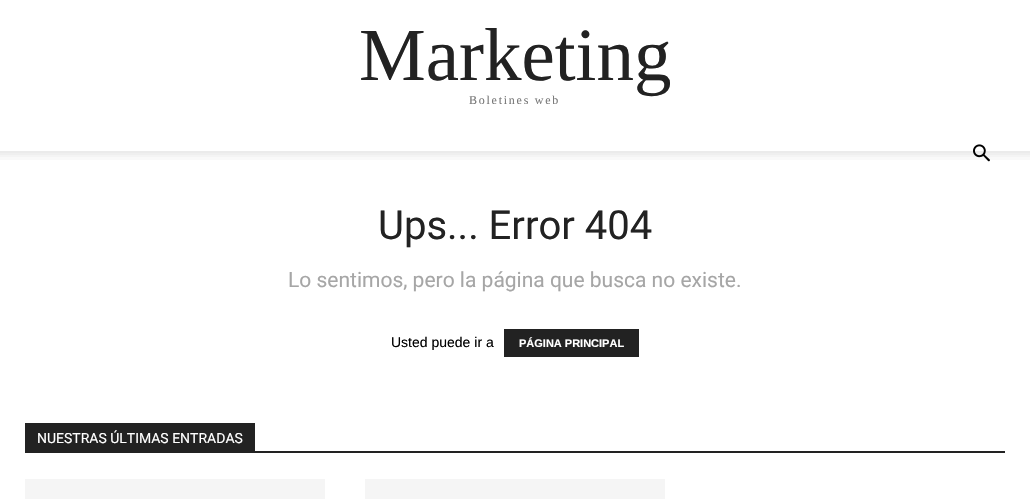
static SkFont makeFont(const char* family, int weight, float size, bool italic = false) {
  SkFontStyle style(weight, SkFontStyle::kNormal_Width,
    italic ? SkFontStyle::kItalic_Slant : SkFontStyle::kUpright_Slant);
  SkFont result(fontMgr->matchFamilyStyle(family, style), size);
  result.setSubpixel(true);
  return result;
}

static void text(SkCanvas* c, const char* s, float x, float y, const SkFont& font, SkColor color) {
  SkPaint ink(SkColor4f::FromColor(color));
  ink.setAntiAlias(true);
  c->drawString(s, x, y, font, ink);
}

static void spacedText(SkCanvas* c, const char* s, float x, float y, const SkFont& font, const SkPaint& ink, float letter, float word) {
  std::vector<SkGlyphID> glyphs(font.countText(s, strlen(s), SkTextEncoding::kUTF8));
  std::vector<float> xs(glyphs.size());
  font.textToGlyphs(s, strlen(s), SkTextEncoding::kUTF8, glyphs);
  font.getXPos(glyphs, xs, x);
  float extra = 0;
  for (size_t i = 0; i < glyphs.size(); i++) {
    xs[i] += extra;
    extra += letter + word * (glyphs[i] == font.unicharToGlyph(' '));
  }
  c->drawTextBlob(SkTextBlob::MakeFromPosHGlyphs(glyphs, xs, y, font), 0, 0, ink);
}

static void box(SkCanvas* c, float l, float t, float r, float b, SkColor color) {
  SkPaint ink(SkColor4f::FromColor(color));
  ink.setAntiAlias(true);
  c->drawRect(SkRect::MakeLTRB(l, t, r, b), ink);
}

static void picture(SkCanvas* c, const char* path, float l, float t, float r, float b) {
  auto image = SkImages::DeferredFromEncodedData(SkData::MakeFromFileName(path));
  c->drawImageRect(image, SkRect::MakeLTRB(l, t, r, b), SkSamplingOptions());
}

void draw(SkCanvas* c) {
  SkPaint paint;
  paint.setAntiAlias(true);
  c->clear(0xffffffff);
  SkFont face1 = makeFont("Liberation Serif", 400, 75);
  text(c, "Marketing", 359, 80, face1, 0xff222222);
  SkFont face2 = makeFont("Liberation Serif", 400, 12);
  paint.setColor(0xff777777);
  spacedText(c, "Boletines web", 469, 104, face2, paint, 1.75f, 0);
  picture(c, "img_02.png", 0, 151, 1030, 160);
  picture(c, "img_01.png", 973, 144, 990, 162);
  SkFont face3 = makeFont("Roboto", 400, 40);
  text(c, "Ups... Error 404", 378, 239, face3, 0xff222222);
  SkFont face4 = makeFont("Roboto", 400, 21);
  text(c, "Lo sentimos, pero la página que busca no existe.", 288, 287, face4, 0xffa6a6a6);
  SkFont face5 = makeFont("Liberation Sans", 400, 14);
  text(c, "Usted puede ir a", 391, 347, face5, 0xff000000);
  box(c, 504, 329, 639, 357, 0xff222222);
  SkFont face6 = makeFont("Liberation Sans", 700, 11);
  text(c, "PÁGINA PRINCIPAL", 519, 347, face6, 0xffffffff);
  box(c, 25, 451, 1005, 453, 0xff222222);
  box(c, 25, 423, 255, 451, 0xff222222);
  SkFont face7 = makeFont("Roboto", 400, 14);
  text(c, "NUESTRAS ÚLTIMAS ENTRADAS", 37, 443, face7, 0xffffffff);
  box(c, 25, 479, 325, 499, 0xfff5f5f5);
  box(c, 365, 479, 665, 499, 0xfff5f5f5);
}
